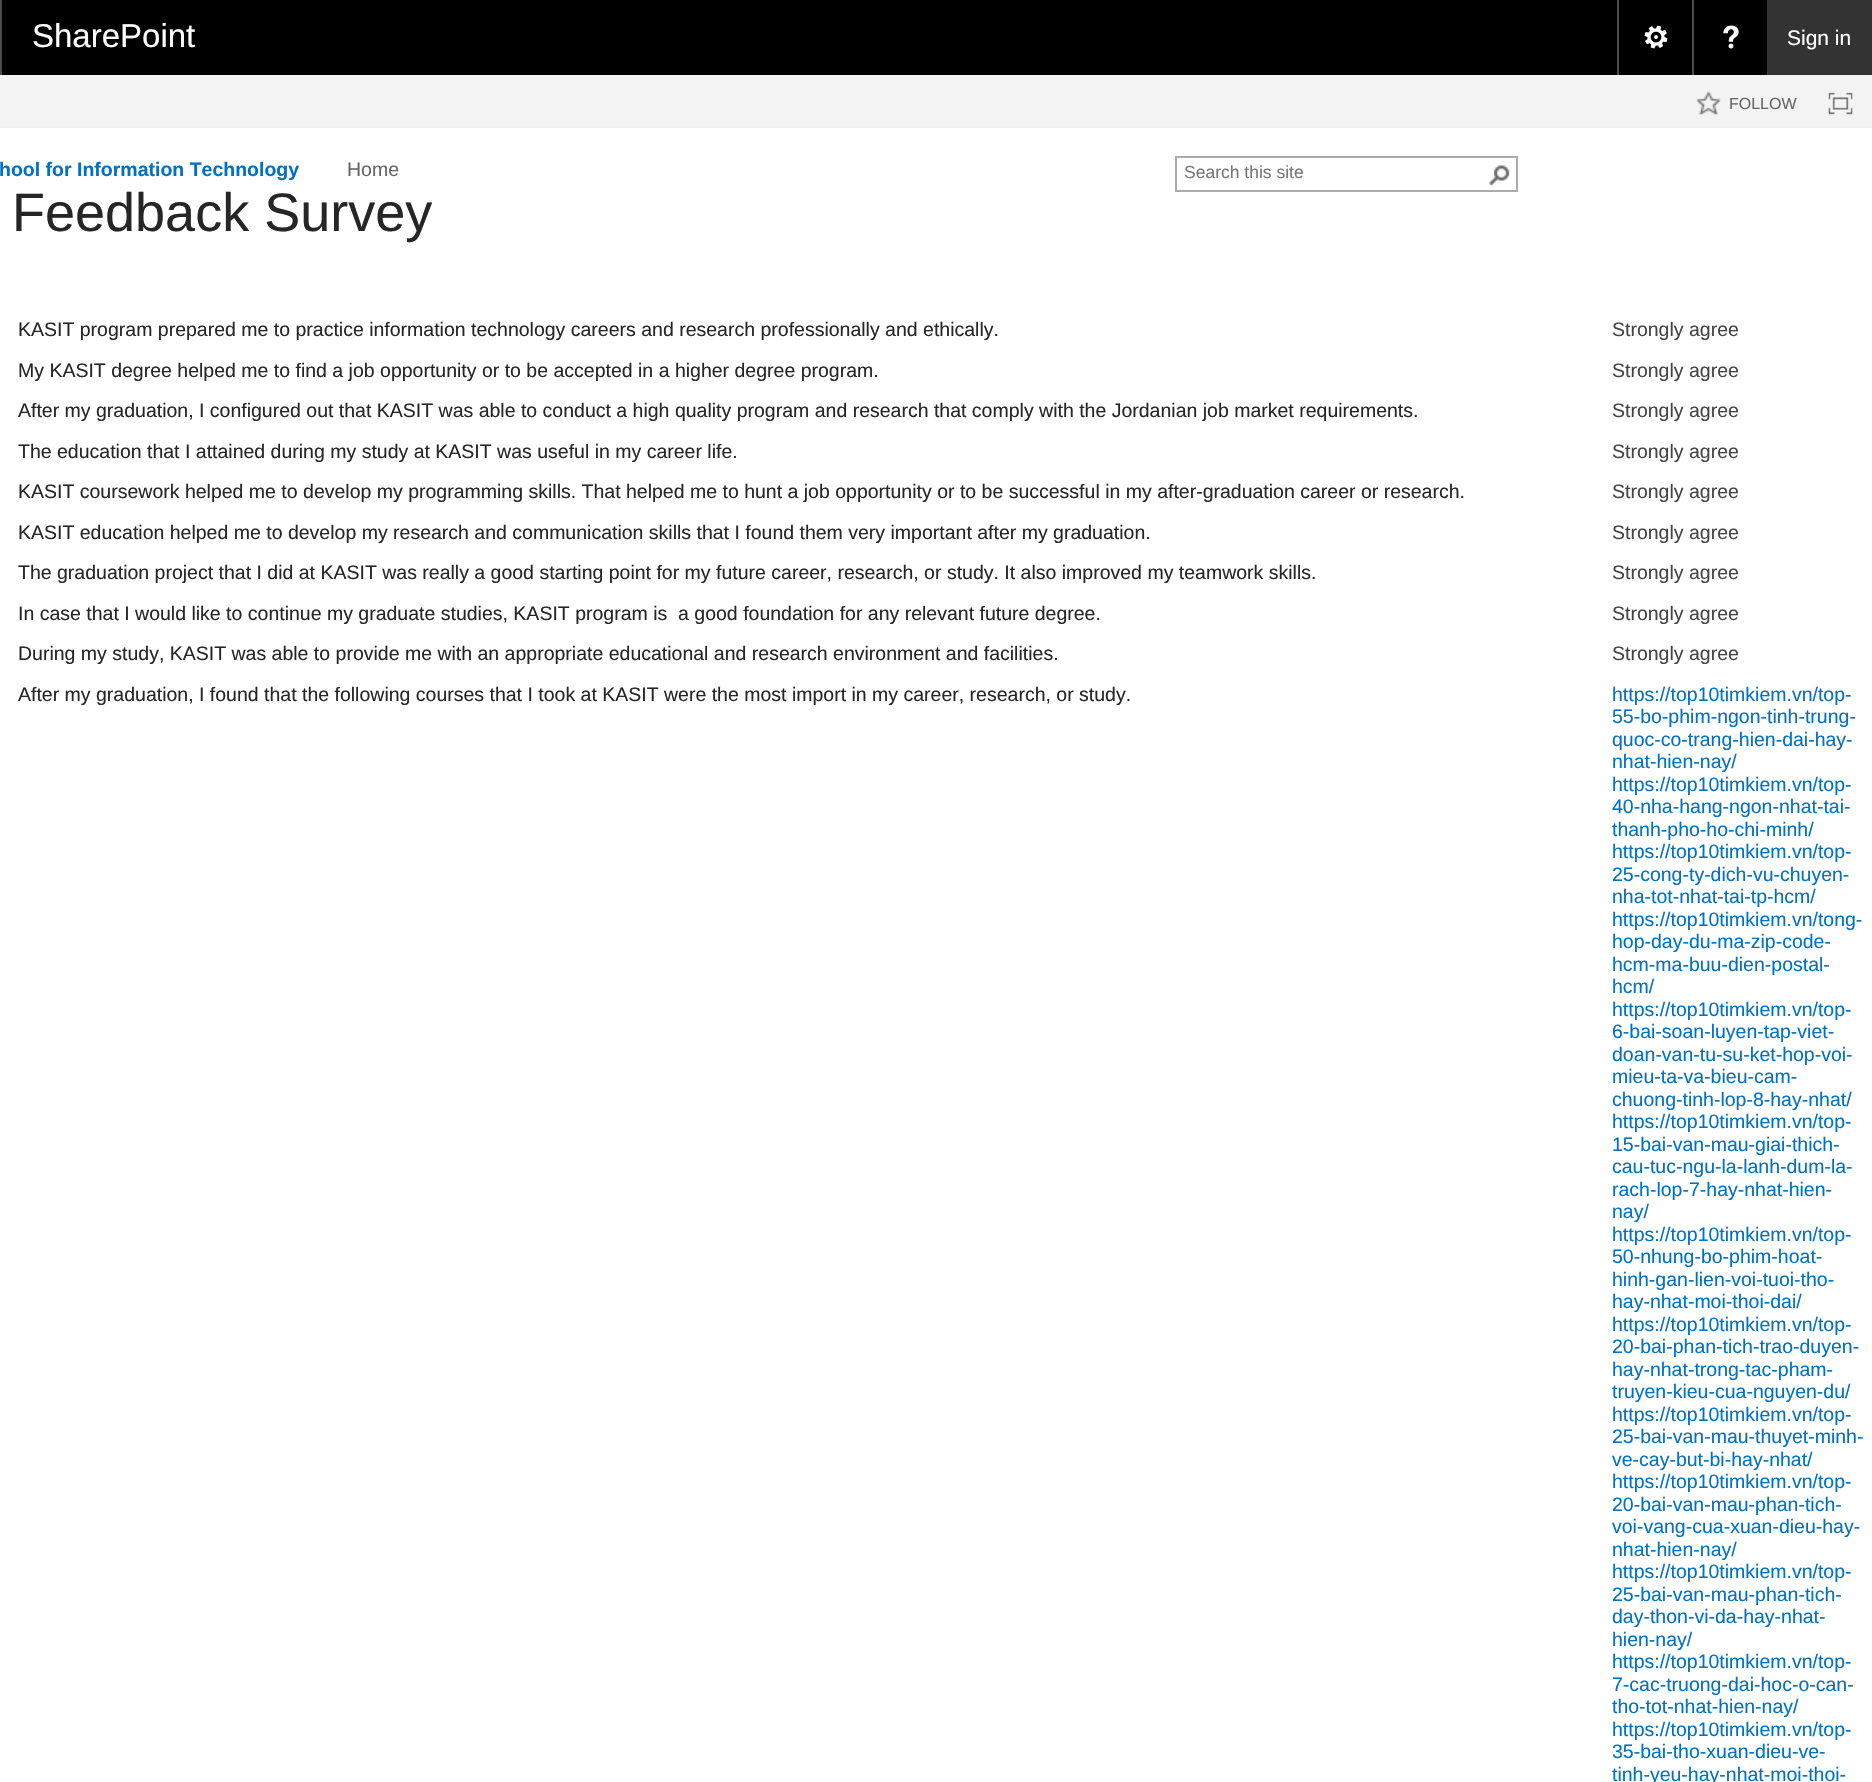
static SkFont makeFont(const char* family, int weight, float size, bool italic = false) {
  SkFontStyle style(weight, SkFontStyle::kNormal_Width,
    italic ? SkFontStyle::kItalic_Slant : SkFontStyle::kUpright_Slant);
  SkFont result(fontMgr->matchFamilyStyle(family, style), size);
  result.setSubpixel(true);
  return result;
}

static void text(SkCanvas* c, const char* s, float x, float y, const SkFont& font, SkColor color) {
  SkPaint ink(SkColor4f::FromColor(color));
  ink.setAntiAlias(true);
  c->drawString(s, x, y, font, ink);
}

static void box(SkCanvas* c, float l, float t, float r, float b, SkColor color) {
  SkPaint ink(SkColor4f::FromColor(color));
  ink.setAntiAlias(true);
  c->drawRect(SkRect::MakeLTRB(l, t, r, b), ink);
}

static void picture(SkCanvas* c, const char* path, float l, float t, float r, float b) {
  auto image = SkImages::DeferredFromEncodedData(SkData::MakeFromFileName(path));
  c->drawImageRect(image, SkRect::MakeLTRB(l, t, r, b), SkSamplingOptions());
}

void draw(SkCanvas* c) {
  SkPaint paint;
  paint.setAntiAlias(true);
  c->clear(0xffffffff);
  box(c, 2, 0, 1767, 75, 0xff000000);
  box(c, 0, 0, 2, 75, 0xff4d4d4d);
  SkFont face1 = makeFont("Liberation Sans", 400, 33);
  text(c, "SharePoint", 32, 47, face1, 0xffffffff);
  box(c, 1617, 0, 1619, 75, 0xff4d4d4d);
  picture(c, "img_01.png", 1644, 25, 1668, 49);
  box(c, 1692, 0, 1694, 75, 0xff4d4d4d);
  picture(c, "img_02.png", 1723, 25, 1739, 49);
  box(c, 1767, 0, 1872, 75, 0xff333333);
  SkFont face2 = makeFont("Liberation Sans", 400, 21);
  text(c, "Sign in", 1787, 45, face2, 0xffffffff);
  box(c, 0, 75, 1872, 126, 0xfff3f3f3);
  box(c, 0, 126, 1872, 128, 0xfff0f0f0);
  picture(c, "img_03.png", 1696, 91, 1721, 115);
  SkFont face3 = makeFont("Liberation Sans", 400, 16);
  text(c, "FOLLOW", 1729, 109, face3, 0xff666666);
  picture(c, "img_04.png", 1828, 92, 1853, 115);
  SkFont face4 = makeFont("Liberation Sans", 700, 19.5f);
  text(c, "hool for Information Technology", -1, 176, face4, 0xff0072c6);
  SkFont face5 = makeFont("Liberation Sans", 400, 19.5f);
  text(c, "Home", 347, 176, face5, 0xff666666);
  SkFont face6 = makeFont("Liberation Sans", 400, 54);
  text(c, "Feedback Survey", 12, 231, face6, 0xff262626);
  paint.setStyle(SkPaint::kStroke_Style);
  paint.setStrokeWidth(2);
  paint.setColor(0xffababab);
  c->drawRect(SkRect::MakeLTRB(1176, 157, 1517, 191), paint);
  SkFont face7 = makeFont("Liberation Sans", 400, 17.5f);
  text(c, "Search this site", 1184, 178, face7, 0xff777777);
  picture(c, "img_05.png", 1489, 165, 1510, 186);
  text(c, "KASIT program prepared me to practice information technology careers and research professionally and ethically.", 18, 336, face5, 0xff262626);
  text(c, "Strongly agree", 1612, 336, face5, 0xff444444);
  text(c, "My KASIT degree helped me to find a job opportunity or to be accepted in a higher degree program.", 18, 377, face5, 0xff262626);
  text(c, "Strongly agree", 1612, 377, face5, 0xff444444);
  text(c, "After my graduation, I configured out that KASIT was able to conduct a high quality program and research that comply with the Jordanian job market requirements.", 18, 417, face5, 0xff262626);
  text(c, "Strongly agree", 1612, 417, face5, 0xff444444);
  text(c, "The education that I attained during my study at KASIT was useful in my career life.", 18, 458, face5, 0xff262626);
  text(c, "Strongly agree", 1612, 458, face5, 0xff444444);
  text(c, "KASIT coursework helped me to develop my programming skills. That helped me to hunt a job opportunity or to be successful in my after-graduation career or research.", 18, 498, face5, 0xff262626);
  text(c, "Strongly agree", 1612, 498, face5, 0xff444444);
  text(c, "KASIT education helped me to develop my research and communication skills that I found them very important after my graduation.", 18, 539, face5, 0xff262626);
  text(c, "Strongly agree", 1612, 539, face5, 0xff444444);
  text(c, "The graduation project that I did at KASIT was really a good starting point for my future career, research, or study. It also improved my teamwork skills.", 18, 579, face5, 0xff262626);
  text(c, "Strongly agree", 1612, 579, face5, 0xff444444);
  text(c, "In case that I would like to continue my graduate studies, KASIT program is  a good foundation for any relevant future degree.", 18, 620, face5, 0xff262626);
  text(c, "Strongly agree", 1612, 620, face5, 0xff444444);
  text(c, "During my study, KASIT was able to provide me with an appropriate educational and research environment and facilities.", 18, 660, face5, 0xff262626);
  text(c, "Strongly agree", 1612, 660, face5, 0xff444444);
  text(c, "After my graduation, I found that the following courses that I took at KASIT were the most import in my career, research, or study.", 18, 701, face5, 0xff262626);
  text(c, "https://top10timkiem.vn/top-", 1612, 701, face5, 0xff0072c6);
  text(c, "55-bo-phim-ngon-tinh-trung-", 1612, 723, face5, 0xff0072c6);
  text(c, "quoc-co-trang-hien-dai-hay-", 1612, 746, face5, 0xff0072c6);
  text(c, "nhat-hien-nay/", 1612, 768, face5, 0xff0072c6);
  text(c, "https://top10timkiem.vn/top-", 1612, 791, face5, 0xff0072c6);
  text(c, "40-nha-hang-ngon-nhat-tai-", 1612, 813, face5, 0xff0072c6);
  text(c, "thanh-pho-ho-chi-minh/", 1612, 836, face5, 0xff0072c6);
  text(c, "https://top10timkiem.vn/top-", 1612, 858, face5, 0xff0072c6);
  text(c, "25-cong-ty-dich-vu-chuyen-", 1612, 881, face5, 0xff0072c6);
  text(c, "nha-tot-nhat-tai-tp-hcm/", 1612, 903, face5, 0xff0072c6);
  text(c, "https://top10timkiem.vn/tong-", 1612, 926, face5, 0xff0072c6);
  text(c, "hop-day-du-ma-zip-code-", 1612, 948, face5, 0xff0072c6);
  text(c, "hcm-ma-buu-dien-postal-", 1612, 971, face5, 0xff0072c6);
  text(c, "hcm/", 1612, 993, face5, 0xff0072c6);
  text(c, "https://top10timkiem.vn/top-", 1612, 1016, face5, 0xff0072c6);
  text(c, "6-bai-soan-luyen-tap-viet-", 1612, 1038, face5, 0xff0072c6);
  text(c, "doan-van-tu-su-ket-hop-voi-", 1612, 1061, face5, 0xff0072c6);
  text(c, "mieu-ta-va-bieu-cam-", 1612, 1083, face5, 0xff0072c6);
  text(c, "chuong-tinh-lop-8-hay-nhat/", 1612, 1106, face5, 0xff0072c6);
  text(c, "https://top10timkiem.vn/top-", 1612, 1128, face5, 0xff0072c6);
  text(c, "15-bai-van-mau-giai-thich-", 1612, 1151, face5, 0xff0072c6);
  text(c, "cau-tuc-ngu-la-lanh-dum-la-", 1612, 1173, face5, 0xff0072c6);
  text(c, "rach-lop-7-hay-nhat-hien-", 1612, 1196, face5, 0xff0072c6);
  text(c, "nay/", 1612, 1218, face5, 0xff0072c6);
  text(c, "https://top10timkiem.vn/top-", 1612, 1241, face5, 0xff0072c6);
  text(c, "50-nhung-bo-phim-hoat-", 1612, 1263, face5, 0xff0072c6);
  text(c, "hinh-gan-lien-voi-tuoi-tho-", 1612, 1286, face5, 0xff0072c6);
  text(c, "hay-nhat-moi-thoi-dai/", 1612, 1308, face5, 0xff0072c6);
  text(c, "https://top10timkiem.vn/top-", 1612, 1331, face5, 0xff0072c6);
  text(c, "20-bai-phan-tich-trao-duyen-", 1612, 1353, face5, 0xff0072c6);
  text(c, "hay-nhat-trong-tac-pham-", 1612, 1376, face5, 0xff0072c6);
  text(c, "truyen-kieu-cua-nguyen-du/", 1612, 1398, face5, 0xff0072c6);
  text(c, "https://top10timkiem.vn/top-", 1612, 1421, face5, 0xff0072c6);
  text(c, "25-bai-van-mau-thuyet-minh-", 1612, 1443, face5, 0xff0072c6);
  text(c, "ve-cay-but-bi-hay-nhat/", 1612, 1466, face5, 0xff0072c6);
  text(c, "https://top10timkiem.vn/top-", 1612, 1488, face5, 0xff0072c6);
  text(c, "20-bai-van-mau-phan-tich-", 1612, 1511, face5, 0xff0072c6);
  text(c, "voi-vang-cua-xuan-dieu-hay-", 1612, 1533, face5, 0xff0072c6);
  text(c, "nhat-hien-nay/", 1612, 1556, face5, 0xff0072c6);
  text(c, "https://top10timkiem.vn/top-", 1612, 1578, face5, 0xff0072c6);
  text(c, "25-bai-van-mau-phan-tich-", 1612, 1601, face5, 0xff0072c6);
  text(c, "day-thon-vi-da-hay-nhat-", 1612, 1623, face5, 0xff0072c6);
  text(c, "hien-nay/", 1612, 1646, face5, 0xff0072c6);
  text(c, "https://top10timkiem.vn/top-", 1612, 1668, face5, 0xff0072c6);
  text(c, "7-cac-truong-dai-hoc-o-can-", 1612, 1691, face5, 0xff0072c6);
  text(c, "tho-tot-nhat-hien-nay/", 1612, 1713, face5, 0xff0072c6);
  text(c, "https://top10timkiem.vn/top-", 1612, 1736, face5, 0xff0072c6);
  text(c, "35-bai-tho-xuan-dieu-ve-", 1612, 1758, face5, 0xff0072c6);
  text(c, "tinh-yeu-hay-nhat-moi-thoi-", 1612, 1781, face5, 0xff0072c6);
}
